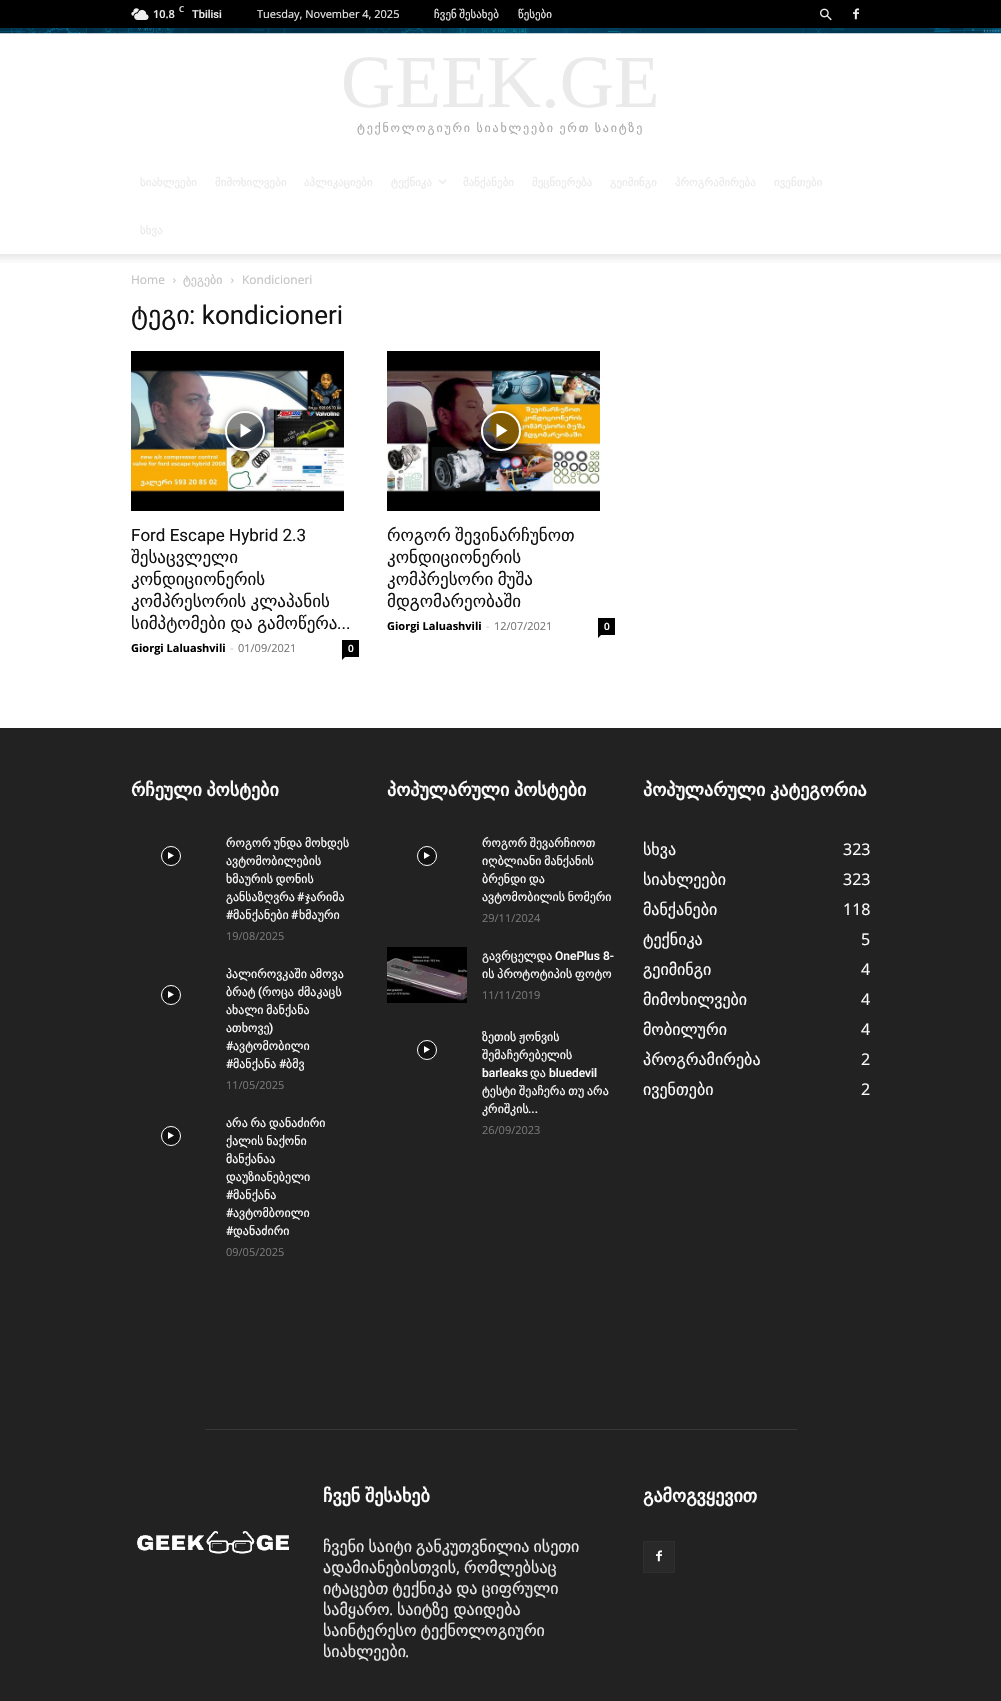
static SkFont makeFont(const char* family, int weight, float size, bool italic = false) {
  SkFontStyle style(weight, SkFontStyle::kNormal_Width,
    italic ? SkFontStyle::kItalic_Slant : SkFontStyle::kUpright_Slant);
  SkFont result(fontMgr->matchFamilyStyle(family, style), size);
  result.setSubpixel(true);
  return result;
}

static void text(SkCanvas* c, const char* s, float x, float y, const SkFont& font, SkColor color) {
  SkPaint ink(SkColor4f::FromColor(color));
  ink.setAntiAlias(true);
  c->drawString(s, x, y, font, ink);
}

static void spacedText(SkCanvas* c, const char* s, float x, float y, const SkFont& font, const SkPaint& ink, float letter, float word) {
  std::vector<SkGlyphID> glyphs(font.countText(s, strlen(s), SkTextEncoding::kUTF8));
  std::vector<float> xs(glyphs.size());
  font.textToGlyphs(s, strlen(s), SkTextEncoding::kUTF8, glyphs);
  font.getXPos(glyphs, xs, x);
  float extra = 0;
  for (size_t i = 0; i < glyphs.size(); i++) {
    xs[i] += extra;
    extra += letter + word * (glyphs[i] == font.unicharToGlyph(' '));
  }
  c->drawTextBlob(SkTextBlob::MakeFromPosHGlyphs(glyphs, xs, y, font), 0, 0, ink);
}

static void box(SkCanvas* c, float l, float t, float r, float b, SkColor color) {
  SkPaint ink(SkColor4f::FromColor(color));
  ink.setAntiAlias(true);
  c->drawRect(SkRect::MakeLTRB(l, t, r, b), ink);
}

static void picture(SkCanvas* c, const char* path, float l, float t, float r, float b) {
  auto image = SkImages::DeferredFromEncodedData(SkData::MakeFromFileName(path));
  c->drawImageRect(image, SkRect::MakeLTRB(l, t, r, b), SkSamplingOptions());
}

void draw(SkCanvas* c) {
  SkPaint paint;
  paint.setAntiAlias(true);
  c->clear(0xffffffff);
  box(c, 0, 0, 1001, 28, 0xff000000);
  picture(c, "img_01.png", 131, 8, 149, 20);
  SkFont face1 = makeFont("Open Sans", 600, 11);
  text(c, "10.8", 153, 18, face1, 0xffeaeaea);
  SkFont face2 = makeFont("Open Sans", 600, 8);
  text(c, "C", 179, 12, face2, 0xffeaeaea);
  SkFont face3 = makeFont("Roboto", 500, 11);
  text(c, "Tbilisi", 192, 18, face3, 0xffeaeaea);
  SkFont face4 = makeFont("Open Sans", 400, 11);
  text(c, "Tuesday, November 4, 2025", 257, 18, face4, 0xffeaeaea);
  SkFont face5 = makeFont("DejaVu Sans", 400, 11);
  paint.setColor(0xffeaeaea);
  spacedText(c, "ჩვენ შესახებ", 434, 18, face5, paint, 0, -1);
  text(c, "წესები", 518, 18, face5, 0xffeaeaea);
  picture(c, "img_02.png", 820, 8, 832, 21);
  picture(c, "img_03.png", 853, 8, 859, 20);
  picture(c, "img_04.png", 0, 28, 1001, 34);
  SkFont face6 = makeFont("Liberation Serif", 400, 75);
  text(c, "GEEK.GE", 341, 107, face6, 0xffeaeaea);
  SkFont face7 = makeFont("DejaVu Sans", 400, 12);
  paint.setColor(0xffaaaaaa);
  spacedText(c, "ტექნოლოგიური სიახლეები ერთ საიტზე", 357, 132, face7, paint, 1.8f, -1);
  text(c, "სიახლეები", 140, 186, face5, 0xffeaeaea);
  text(c, "მიმოხილვები", 215, 186, face5, 0xffeaeaea);
  text(c, "აპლიკაციები", 304, 186, face5, 0xffeaeaea);
  text(c, "ტექნიკა", 391, 186, face5, 0xffeaeaea);
  picture(c, "img_05.png", 438, 179, 447, 185);
  text(c, "მანქანები", 463, 186, face5, 0xffeaeaea);
  text(c, "მეცნიერება", 532, 186, face5, 0xffeaeaea);
  text(c, "გეიმინგი", 610, 186, face5, 0xffeaeaea);
  text(c, "პროგრამირება", 675, 186, face5, 0xffeaeaea);
  text(c, "ივენთები", 774, 186, face5, 0xffeaeaea);
  text(c, "სხვა", 140, 234, face5, 0xffeaeaea);
  picture(c, "img_06.png", 0, 254, 1001, 263);
  SkFont face8 = makeFont("Open Sans", 400, 12);
  text(c, "Home", 131, 284, face8, 0xffc3c3c3);
  picture(c, "img_07.png", 173, 278, 176, 283);
  text(c, "ტეგები", 183, 284, face7, 0xffc3c3c3);
  picture(c, "img_07.png", 231, 278, 234, 283);
  text(c, "Kondicioneri", 242, 284, face8, 0xffc3c3c3);
  SkFont face9 = makeFont("DejaVu Sans", 400, 26);
  text(c, "ტეგი", 131, 324, face9, 0xff111111);
  SkFont face10 = makeFont("Roboto", 400, 26);
  text(c, ": kondicioneri", 189, 324, face10, 0xff111111);
  picture(c, "img_08.png", 131, 351, 344, 511);
  c->save();
  c->clipPath(SkPathBuilder(SkPathFillType::kEvenOdd).moveTo(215, 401).lineTo(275, 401).lineTo(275, 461).lineTo(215, 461).close().moveTo(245, 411).cubicTo(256, 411, 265, 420, 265, 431).cubicTo(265, 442, 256, 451, 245, 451).cubicTo(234, 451, 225, 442, 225, 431).cubicTo(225, 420, 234, 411, 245, 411).close().detach(), true);
  paint.setColor(0x66000000);
  paint.setMaskFilter(SkMaskFilter::MakeBlur(kNormal_SkBlurStyle, 3));
  c->drawRoundRect(SkRect::MakeLTRB(225, 411, 265, 451), 20, 20, paint);
  paint.setMaskFilter(nullptr);
  c->restore();
  paint.setColor(0x7a000000);
  c->drawCircle(245, 431, 19, paint);
  paint.setStyle(SkPaint::kStroke_Style);
  paint.setStrokeWidth(2);
  paint.setColor(0xffffffff);
  c->drawCircle(245, 431, 19, paint);
  paint.setStyle(SkPaint::kFill_Style);
  c->drawPath(SkPathBuilder().moveTo(240.5f, 423.5f).lineTo(240.5f, 437.5f).lineTo(251.5f, 430.5f).close().detach(), paint);
  SkFont face11 = makeFont("Roboto", 400, 17);
  text(c, "Ford Escape Hybrid 2.3", 131, 541, face11, 0xff111111);
  SkFont face12 = makeFont("DejaVu Sans", 400, 17);
  text(c, "შესაცვლელი", 131, 563, face12, 0xff111111);
  text(c, "კონდიციონერის", 131, 585, face12, 0xff111111);
  paint.setColor(0xff111111);
  spacedText(c, "კომპრესორის კლაპანის", 131, 607, face12, paint, 0, -1);
  spacedText(c, "სიმპტომები და გამოწერა", 131, 629, face12, paint, 0, -1);
  text(c, "...", 337, 629, face11, 0xff111111);
  SkFont face13 = makeFont("Open Sans", 700, 11);
  text(c, "Giorgi Laluashvili", 131, 652, face13, 0xff000000);
  text(c, "-", 230, 652, face4, 0xffcccccc);
  text(c, "01/09/2021", 238, 652, face4, 0xff767676);
  box(c, 342, 640, 359, 657, 0xff000000);
  SkFont face14 = makeFont("Open Sans", 600, 10);
  text(c, "0", 348, 652, face14, 0xffffffff);
  paint.setColor(0xff000000);
  c->drawPath(SkPathBuilder().moveTo(342, 657).lineTo(345, 657).lineTo(342, 660).close().detach(), paint);
  picture(c, "img_09.png", 387, 351, 600, 511);
  c->save();
  c->clipPath(SkPathBuilder(SkPathFillType::kEvenOdd).moveTo(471, 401).lineTo(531, 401).lineTo(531, 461).lineTo(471, 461).close().moveTo(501, 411).cubicTo(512, 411, 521, 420, 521, 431).cubicTo(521, 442, 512, 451, 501, 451).cubicTo(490, 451, 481, 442, 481, 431).cubicTo(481, 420, 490, 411, 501, 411).close().detach(), true);
  paint.setColor(0x66000000);
  paint.setMaskFilter(SkMaskFilter::MakeBlur(kNormal_SkBlurStyle, 3));
  c->drawRoundRect(SkRect::MakeLTRB(481, 411, 521, 451), 20, 20, paint);
  paint.setMaskFilter(nullptr);
  c->restore();
  paint.setColor(0x7a000000);
  c->drawCircle(501, 431, 19, paint);
  paint.setStyle(SkPaint::kStroke_Style);
  paint.setColor(0xffffffff);
  c->drawCircle(501, 431, 19, paint);
  paint.setStyle(SkPaint::kFill_Style);
  c->drawPath(SkPathBuilder().moveTo(496.5f, 423.5f).lineTo(496.5f, 437.5f).lineTo(507.5f, 430.5f).close().detach(), paint);
  paint.setColor(0xff111111);
  spacedText(c, "როგორ შევინარჩუნოთ", 387, 541, face12, paint, 0, -1);
  text(c, "კონდიციონერის", 387, 563, face12, 0xff111111);
  spacedText(c, "კომპრესორი მუშა", 387, 585, face12, paint, 0, -1);
  text(c, "მდგომარეობაში", 387, 607, face12, 0xff111111);
  text(c, "Giorgi Laluashvili", 387, 630, face13, 0xff000000);
  text(c, "-", 486, 630, face4, 0xffcccccc);
  text(c, "12/07/2021", 494, 630, face4, 0xff767676);
  box(c, 598, 618, 615, 635, 0xff000000);
  text(c, "0", 604, 630, face14, 0xffffffff);
  paint.setColor(0xff000000);
  c->drawPath(SkPathBuilder().moveTo(598, 635).lineTo(601, 635).lineTo(598, 638).close().detach(), paint);
  box(c, 0, 728, 1001, 1701, 0xff222222);
  SkFont face15 = makeFont("DejaVu Sans", 700, 18);
  paint.setColor(0xffffffff);
  spacedText(c, "რჩეული პოსტები", 131, 796, face15, paint, 0, -1);
  paint.setColor(0x7a000000);
  c->drawCircle(171, 856, 9.5f, paint);
  paint.setStyle(SkPaint::kStroke_Style);
  paint.setStrokeWidth(1);
  paint.setColor(0xffffffff);
  c->drawCircle(171, 856, 9.5f, paint);
  paint.setStyle(SkPaint::kFill_Style);
  c->drawPath(SkPathBuilder().moveTo(168, 852).lineTo(168, 859).lineTo(174, 855.5f).close().detach(), paint);
  spacedText(c, "როგორ უნდა მოხდეს", 226, 847, face7, paint, 0, -1);
  text(c, "ავტომობილების", 226, 865, face7, 0xffffffff);
  spacedText(c, "ხმაურის დონის", 226, 883, face7, paint, 0, -1);
  text(c, "განსაზღვრა", 226, 901, face7, 0xffffffff);
  SkFont face16 = makeFont("Roboto", 500, 12);
  text(c, "#", 297, 901, face16, 0xffffffff);
  text(c, "ჯარიმა", 305, 901, face7, 0xffffffff);
  text(c, "#", 226, 919, face16, 0xffffffff);
  text(c, "მანქანები", 233, 919, face7, 0xffffffff);
  text(c, "#", 291, 919, face16, 0xffffffff);
  text(c, "ხმაური", 299, 919, face7, 0xffffffff);
  text(c, "19/08/2025", 226, 940, face4, 0xff767676);
  paint.setColor(0x7a000000);
  c->drawCircle(171, 995, 9.5f, paint);
  paint.setStyle(SkPaint::kStroke_Style);
  paint.setColor(0xffffffff);
  c->drawCircle(171, 995, 9.5f, paint);
  paint.setStyle(SkPaint::kFill_Style);
  c->drawPath(SkPathBuilder().moveTo(168, 991).lineTo(168, 998).lineTo(174, 994.5f).close().detach(), paint);
  spacedText(c, "პალიროვკაში ამოვა", 226, 978, face7, paint, 0, -1);
  text(c, "ბრატ", 226, 996, face7, 0xffffffff);
  text(c, "(", 258, 996, face16, 0xffffffff);
  text(c, "როცა ძმაკაცს", 262, 996, face7, 0xffffffff);
  spacedText(c, "ახალი მანქანა", 226, 1014, face7, paint, 0, -1);
  text(c, "ათხოვე", 226, 1032, face7, 0xffffffff);
  text(c, ")", 269, 1032, face16, 0xffffffff);
  text(c, "#", 226, 1050, face16, 0xffffffff);
  text(c, "ავტომობილი", 233, 1050, face7, 0xffffffff);
  text(c, "#", 226, 1068, face16, 0xffffffff);
  text(c, "მანქანა", 233, 1068, face7, 0xffffffff);
  text(c, "#", 279, 1068, face16, 0xffffffff);
  text(c, "ბმვ", 286, 1068, face7, 0xffffffff);
  text(c, "11/05/2025", 226, 1089, face4, 0xff767676);
  paint.setColor(0x7a000000);
  c->drawCircle(171, 1136, 9.5f, paint);
  paint.setStyle(SkPaint::kStroke_Style);
  paint.setColor(0xffffffff);
  c->drawCircle(171, 1136, 9.5f, paint);
  paint.setStyle(SkPaint::kFill_Style);
  c->drawPath(SkPathBuilder().moveTo(168, 1132).lineTo(168, 1139).lineTo(174, 1135.5f).close().detach(), paint);
  spacedText(c, "არა რა დანაძირი", 226, 1127, face7, paint, 0, -1);
  spacedText(c, "ქალის ნაქონი", 226, 1145, face7, paint, 0, -1);
  text(c, "მანქანაა", 226, 1163, face7, 0xffffffff);
  text(c, "დაუზიანებელი", 226, 1181, face7, 0xffffffff);
  text(c, "#", 226, 1199, face16, 0xffffffff);
  text(c, "მანქანა", 233, 1199, face7, 0xffffffff);
  text(c, "#", 226, 1217, face16, 0xffffffff);
  text(c, "ავტომბოილი", 233, 1217, face7, 0xffffffff);
  text(c, "#", 226, 1235, face16, 0xffffffff);
  text(c, "დანაძირი", 233, 1235, face7, 0xffffffff);
  text(c, "09/05/2025", 226, 1256, face4, 0xff767676);
  spacedText(c, "პოპულარული პოსტები", 387, 796, face15, paint, 0, -1);
  paint.setColor(0x7a000000);
  c->drawCircle(427, 856, 9.5f, paint);
  paint.setStyle(SkPaint::kStroke_Style);
  paint.setColor(0xffffffff);
  c->drawCircle(427, 856, 9.5f, paint);
  paint.setStyle(SkPaint::kFill_Style);
  c->drawPath(SkPathBuilder().moveTo(424, 852).lineTo(424, 859).lineTo(430, 855.5f).close().detach(), paint);
  spacedText(c, "როგორ შევარჩიოთ", 482, 847, face7, paint, 0, -1);
  spacedText(c, "იღბლიანი მანქანის", 482, 865, face7, paint, 0, -1);
  spacedText(c, "ბრენდი და", 482, 883, face7, paint, 0, -1);
  spacedText(c, "ავტომობილის ნომერი", 482, 901, face7, paint, 0, -1);
  text(c, "29/11/2024", 482, 922, face4, 0xff767676);
  picture(c, "img_10.png", 387, 947, 467, 1003);
  text(c, "გავრცელდა", 482, 960, face7, 0xffffffff);
  text(c, "OnePlus 8-", 555, 960, face16, 0xffffffff);
  spacedText(c, "ის პროტოტიპის ფოტო", 482, 978, face7, paint, 0, -1);
  text(c, "11/11/2019", 482, 999, face4, 0xff767676);
  paint.setColor(0x7a000000);
  c->drawCircle(427, 1050, 9.5f, paint);
  paint.setStyle(SkPaint::kStroke_Style);
  paint.setColor(0xffffffff);
  c->drawCircle(427, 1050, 9.5f, paint);
  paint.setStyle(SkPaint::kFill_Style);
  c->drawPath(SkPathBuilder().moveTo(424, 1046).lineTo(424, 1053).lineTo(430, 1049.5f).close().detach(), paint);
  spacedText(c, "ზეთის ჟონვის", 482, 1041, face7, paint, 0, -1);
  text(c, "შემაჩერებელის", 482, 1059, face7, 0xffffffff);
  text(c, "barleaks", 482, 1077, face16, 0xffffffff);
  text(c, "და", 530, 1077, face7, 0xffffffff);
  text(c, "bluedevil", 549, 1077, face16, 0xffffffff);
  spacedText(c, "ტესტი შეაჩერა თუ არა", 482, 1095, face7, paint, 0, -1);
  text(c, "კრიშკის", 482, 1113, face7, 0xffffffff);
  text(c, "...", 528, 1113, face16, 0xffffffff);
  text(c, "26/09/2023", 482, 1134, face4, 0xff767676);
  spacedText(c, "პოპულარული კატეგორია", 643, 796, face15, paint, 0, -1);
  SkFont face17 = makeFont("DejaVu Sans", 400, 16);
  text(c, "სხვა", 643, 855, face17, 0xffffffff);
  SkFont face18 = makeFont("Open Sans", 400, 16);
  text(c, "323", 843, 855, face18, 0xffffffff);
  text(c, "სიახლეები", 643, 885, face17, 0xffffffff);
  text(c, "323", 843, 885, face18, 0xffffffff);
  text(c, "მანქანები", 643, 915, face17, 0xffffffff);
  text(c, "118", 843, 915, face18, 0xffffffff);
  text(c, "ტექნიკა", 643, 945, face17, 0xffffffff);
  text(c, "5", 861, 945, face18, 0xffffffff);
  text(c, "გეიმინგი", 643, 975, face17, 0xffffffff);
  text(c, "4", 861, 975, face18, 0xffffffff);
  text(c, "მიმოხილვები", 643, 1005, face17, 0xffffffff);
  text(c, "4", 861, 1005, face18, 0xffffffff);
  text(c, "მობილური", 643, 1035, face17, 0xffffffff);
  text(c, "4", 861, 1035, face18, 0xffffffff);
  text(c, "პროგრამირება", 643, 1065, face17, 0xffffffff);
  text(c, "2", 861, 1065, face18, 0xffffffff);
  text(c, "ივენთები", 643, 1095, face17, 0xffffffff);
  text(c, "2", 861, 1095, face18, 0xffffffff);
  box(c, 205, 1429, 797, 1430, 0xff383838);
  spacedText(c, "ჩვენ შესახებ", 323, 1502, face15, paint, 0, -1);
  paint.setColor(0xffeaeaea);
  spacedText(c, "ჩვენი საიტი განკუთვნილია ისეთი", 323, 1552, face17, paint, 0, -1);
  text(c, "ადამიანებისთვის", 323, 1573, face17, 0xffeaeaea);
  text(c, ",", 456, 1573, face18, 0xffeaeaea);
  text(c, "რომლებსაც", 464, 1573, face17, 0xffeaeaea);
  spacedText(c, "იტაცებთ ტექნიკა და ციფრული", 323, 1594, face17, paint, 0, -1);
  text(c, "სამყარო", 323, 1615, face17, 0xffeaeaea);
  text(c, ".", 389, 1615, face18, 0xffeaeaea);
  text(c, "საიტზე დაიდება", 397, 1615, face17, 0xffeaeaea);
  spacedText(c, "საინტერესო ტექნოლოგიური", 323, 1636, face17, paint, 0, -1);
  text(c, "სიახლეები", 323, 1657, face17, 0xffeaeaea);
  text(c, ".", 405, 1657, face18, 0xffeaeaea);
  text(c, "გამოგვყევით", 643, 1502, face15, 0xffffffff);
  box(c, 644, 1542, 674, 1572, 0xff292929);
  picture(c, "img_11.png", 656, 1550, 662, 1562);
  paint.setStyle(SkPaint::kStroke_Style);
  paint.setColor(0xff2f2f2f);
  c->drawRect(SkRect::MakeLTRB(643.5f, 1541.5f, 674.5f, 1572.5f), paint);
  picture(c, "img_12.png", 137, 1531, 289, 1554);
}
